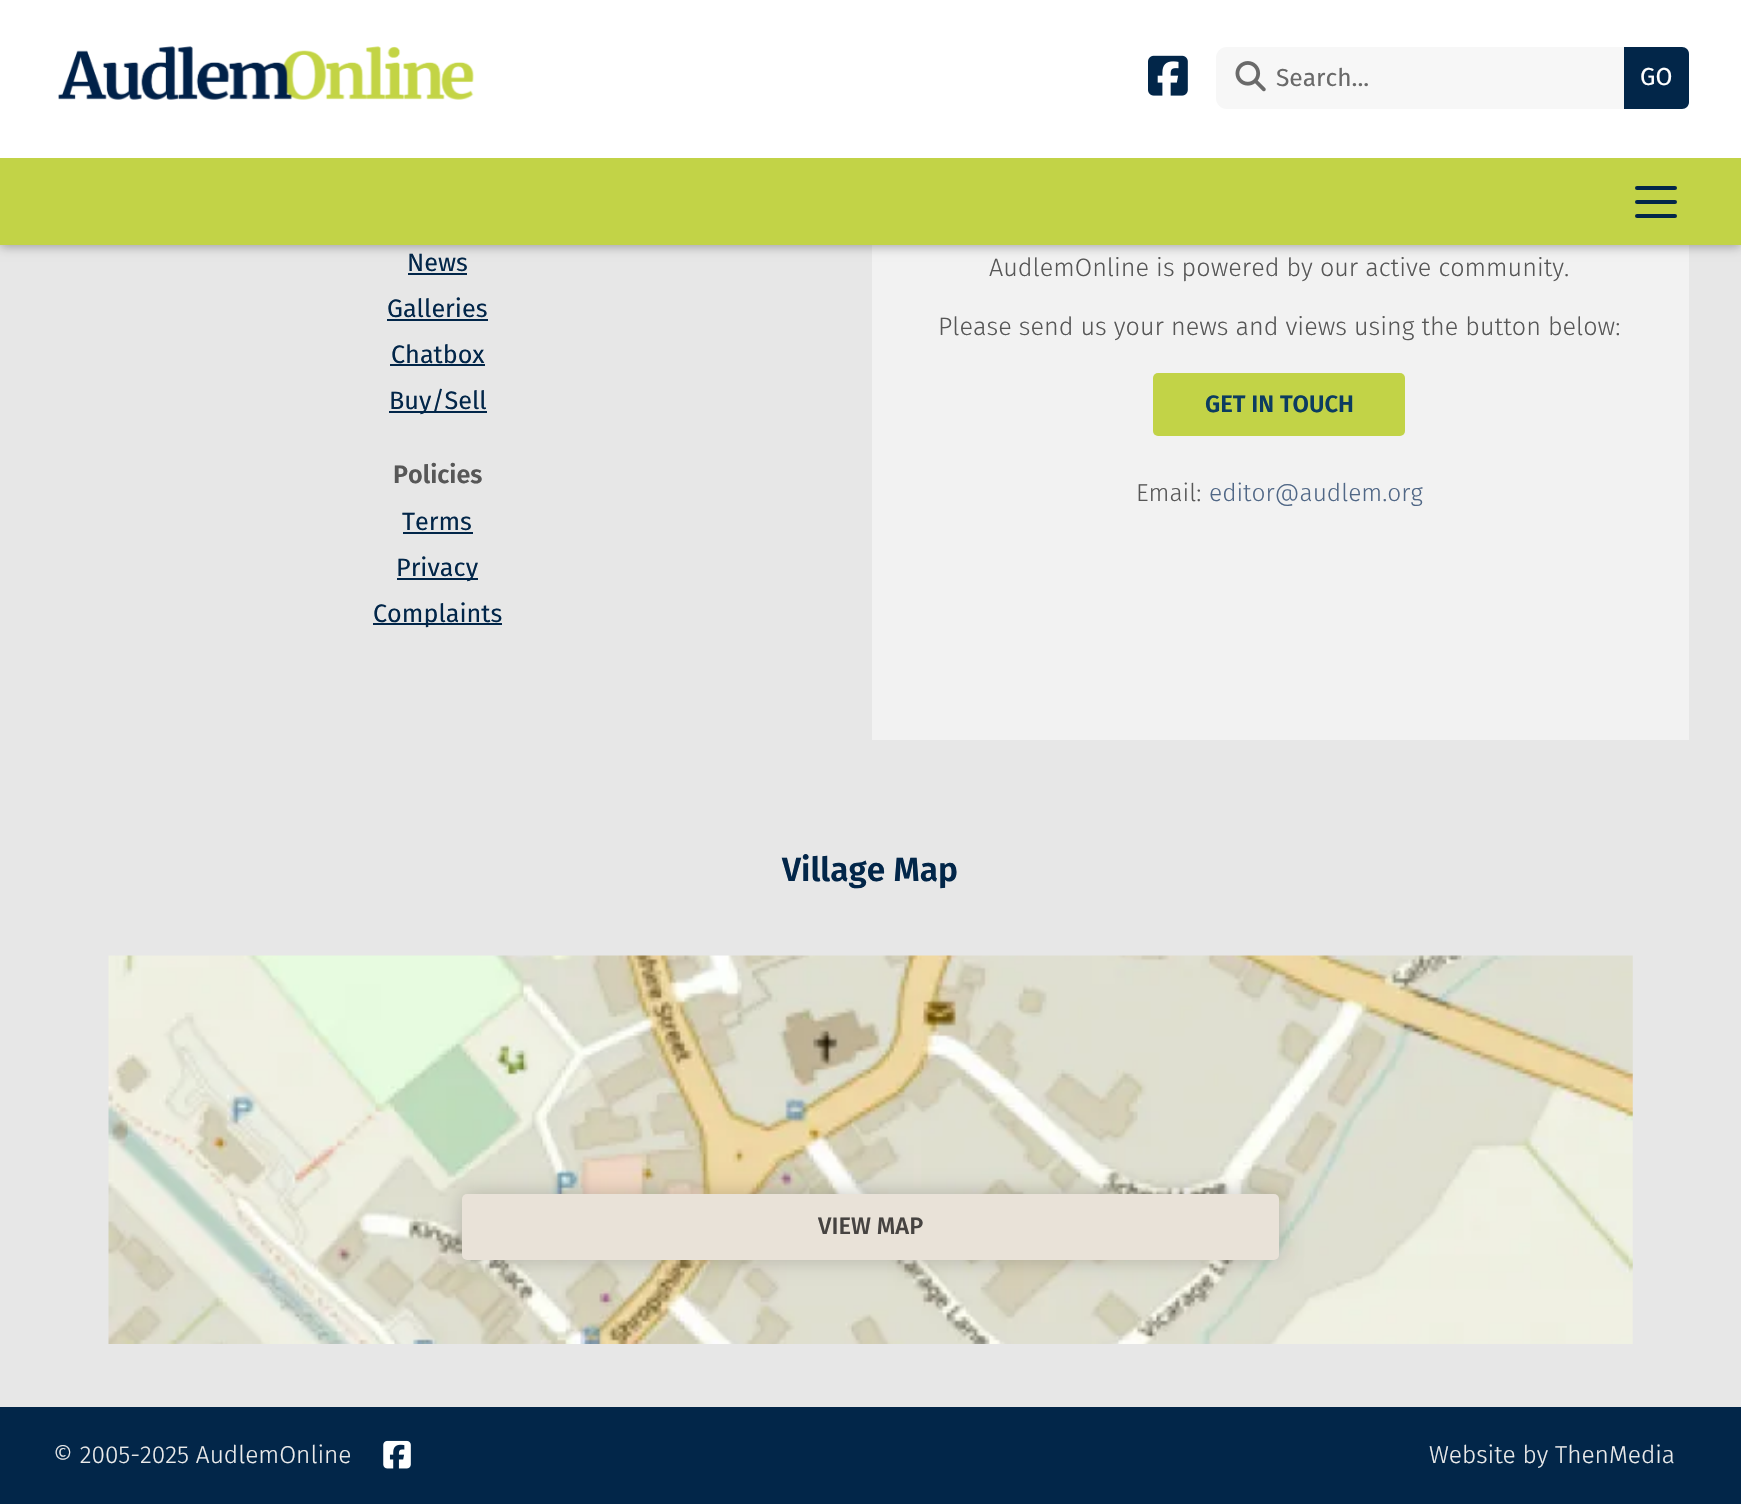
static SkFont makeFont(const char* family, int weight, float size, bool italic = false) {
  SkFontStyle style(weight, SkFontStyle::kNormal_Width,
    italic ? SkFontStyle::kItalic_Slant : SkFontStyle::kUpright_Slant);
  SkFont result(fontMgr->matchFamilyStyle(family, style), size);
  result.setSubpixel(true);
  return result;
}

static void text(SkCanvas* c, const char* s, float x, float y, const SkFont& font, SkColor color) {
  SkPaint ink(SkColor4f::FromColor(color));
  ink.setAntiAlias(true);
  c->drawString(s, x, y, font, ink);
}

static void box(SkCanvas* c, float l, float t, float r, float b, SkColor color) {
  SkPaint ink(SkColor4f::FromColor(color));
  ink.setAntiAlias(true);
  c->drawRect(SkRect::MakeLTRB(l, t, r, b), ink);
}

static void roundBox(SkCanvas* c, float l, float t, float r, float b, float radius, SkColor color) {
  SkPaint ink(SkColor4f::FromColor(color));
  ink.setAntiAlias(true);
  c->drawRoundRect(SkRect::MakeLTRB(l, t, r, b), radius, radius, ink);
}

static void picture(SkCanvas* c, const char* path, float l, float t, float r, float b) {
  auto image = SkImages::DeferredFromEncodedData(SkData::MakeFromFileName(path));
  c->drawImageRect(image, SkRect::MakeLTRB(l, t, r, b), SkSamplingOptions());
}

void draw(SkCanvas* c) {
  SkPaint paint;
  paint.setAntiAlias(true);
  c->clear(0xffe7e7e7);
  box(c, 872, 245, 1689, 740, 0xfff2f2f2);
  paint.setColor(0x4d000000);
  paint.setMaskFilter(SkMaskFilter::MakeBlur(kNormal_SkBlurStyle, 5));
  c->drawRect(SkRect::MakeLTRB(0, 2, 1741, 247), paint);
  paint.setMaskFilter(nullptr);
  box(c, 0, 0, 1741, 158, 0xffffffff);
  picture(c, "img_01.png", 58, 46, 474, 100);
  picture(c, "img_02.png", 1148, 55, 1188, 96);
  roundBox(c, 1216, 47, 1689, 109, 11, 0xfff7f7f7);
  picture(c, "img_03.png", 1235, 61, 1266, 92);
  SkFont face1 = makeFont("Fira Sans", 400, 24.5f);
  text(c, "Search...", 1276, 86, face1, 0xff6a6a6a);
  paint.setColor(0xff022649);
  c->drawPath(SkPathBuilder().moveTo(1624, 47).lineTo(1682, 47).cubicTo(1686, 47, 1689, 50, 1689, 54).lineTo(1689, 102).cubicTo(1689, 106, 1686, 109, 1682, 109).lineTo(1624, 109).close().detach(), paint);
  text(c, "GO", 1640, 85, face1, 0xffffffff);
  box(c, 0, 158, 1741, 245, 0xffc2d347);
  roundBox(c, 1635, 186, 1677, 190, 2, 0xff022649);
  roundBox(c, 1635, 200, 1677, 204, 2, 0xff022649);
  roundBox(c, 1635, 214, 1677, 218, 2, 0xff022649);
  SkFont face2 = makeFont("Fira Sans", 400, 25.2f);
  text(c, "News", 407, 271, face2, 0xff022649);
  box(c, 408, 273, 467, 275, 0xff022649);
  text(c, "Galleries", 387, 317, face2, 0xff022649);
  box(c, 387, 319, 488, 321, 0xff022649);
  text(c, "Chatbox", 391, 363, face2, 0xff022649);
  box(c, 390, 364, 485, 366, 0xff022649);
  box(c, 389, 411, 487, 413, 0xff022649);
  text(c, "Buy/Sell", 389, 409, face2, 0xff022649);
  SkFont face3 = makeFont("Fira Sans", 600, 25.2f);
  text(c, "Policies", 393, 483, face3, 0xff575757);
  text(c, "Terms", 402, 530, face2, 0xff022649);
  box(c, 403, 532, 473, 534, 0xff022649);
  box(c, 397, 578, 478, 580, 0xff022649);
  text(c, "Privacy", 396, 576, face2, 0xff022649);
  box(c, 373, 623, 502, 625, 0xff022649);
  text(c, "Complaints", 373, 622, face2, 0xff022649);
  SkFont face4 = makeFont("Fira Sans", 300, 25.2f);
  text(c, "AudlemOnline is powered by our active community.", 989, 276, face4, 0xff575757);
  text(c, "Please send us your news and views using the button below:", 938, 335, face4, 0xff575757);
  roundBox(c, 1153, 373, 1405, 436, 5, 0xffc2d347);
  SkFont face5 = makeFont("Fira Sans", 600, 23.75f);
  text(c, "GET IN TOUCH", 1205, 412, face5, 0xff0c3c60);
  SkFont face6 = makeFont("Fira Sans", 300, 24.5f);
  text(c, "Email:", 1136, 501, face6, 0xff575757);
  text(c, "editor@audlem.org", 1209, 501, face6, 0xff506786);
  SkFont face7 = makeFont("Fira Sans", 600, 33.5f);
  text(c, "Village Map", 782, 881, face7, 0xff022649);
  picture(c, "img_04.png", 108, 955, 1633, 1344);
  paint.setColor(0x33000000);
  paint.setMaskFilter(SkMaskFilter::MakeBlur(kNormal_SkBlurStyle, 10.5f));
  c->drawRoundRect(SkRect::MakeLTRB(462, 1194, 1279, 1260), 5, 5, paint);
  paint.setMaskFilter(nullptr);
  roundBox(c, 462, 1194, 1279, 1260, 5, 0xffe9e2d8);
  SkFont face8 = makeFont("Fira Sans", 500, 23.75f);
  text(c, "VIEW MAP", 818, 1234, face8, 0xff464341);
  box(c, 0, 1407, 1741, 1504, 0xff022649);
  text(c, "© 2005-2025 AudlemOnline", 53, 1463, face6, 0xffebebeb);
  picture(c, "img_05.png", 383, 1440, 411, 1469);
  text(c, "Website by ThenMedia", 1429, 1463, face6, 0xffebebeb);
}
